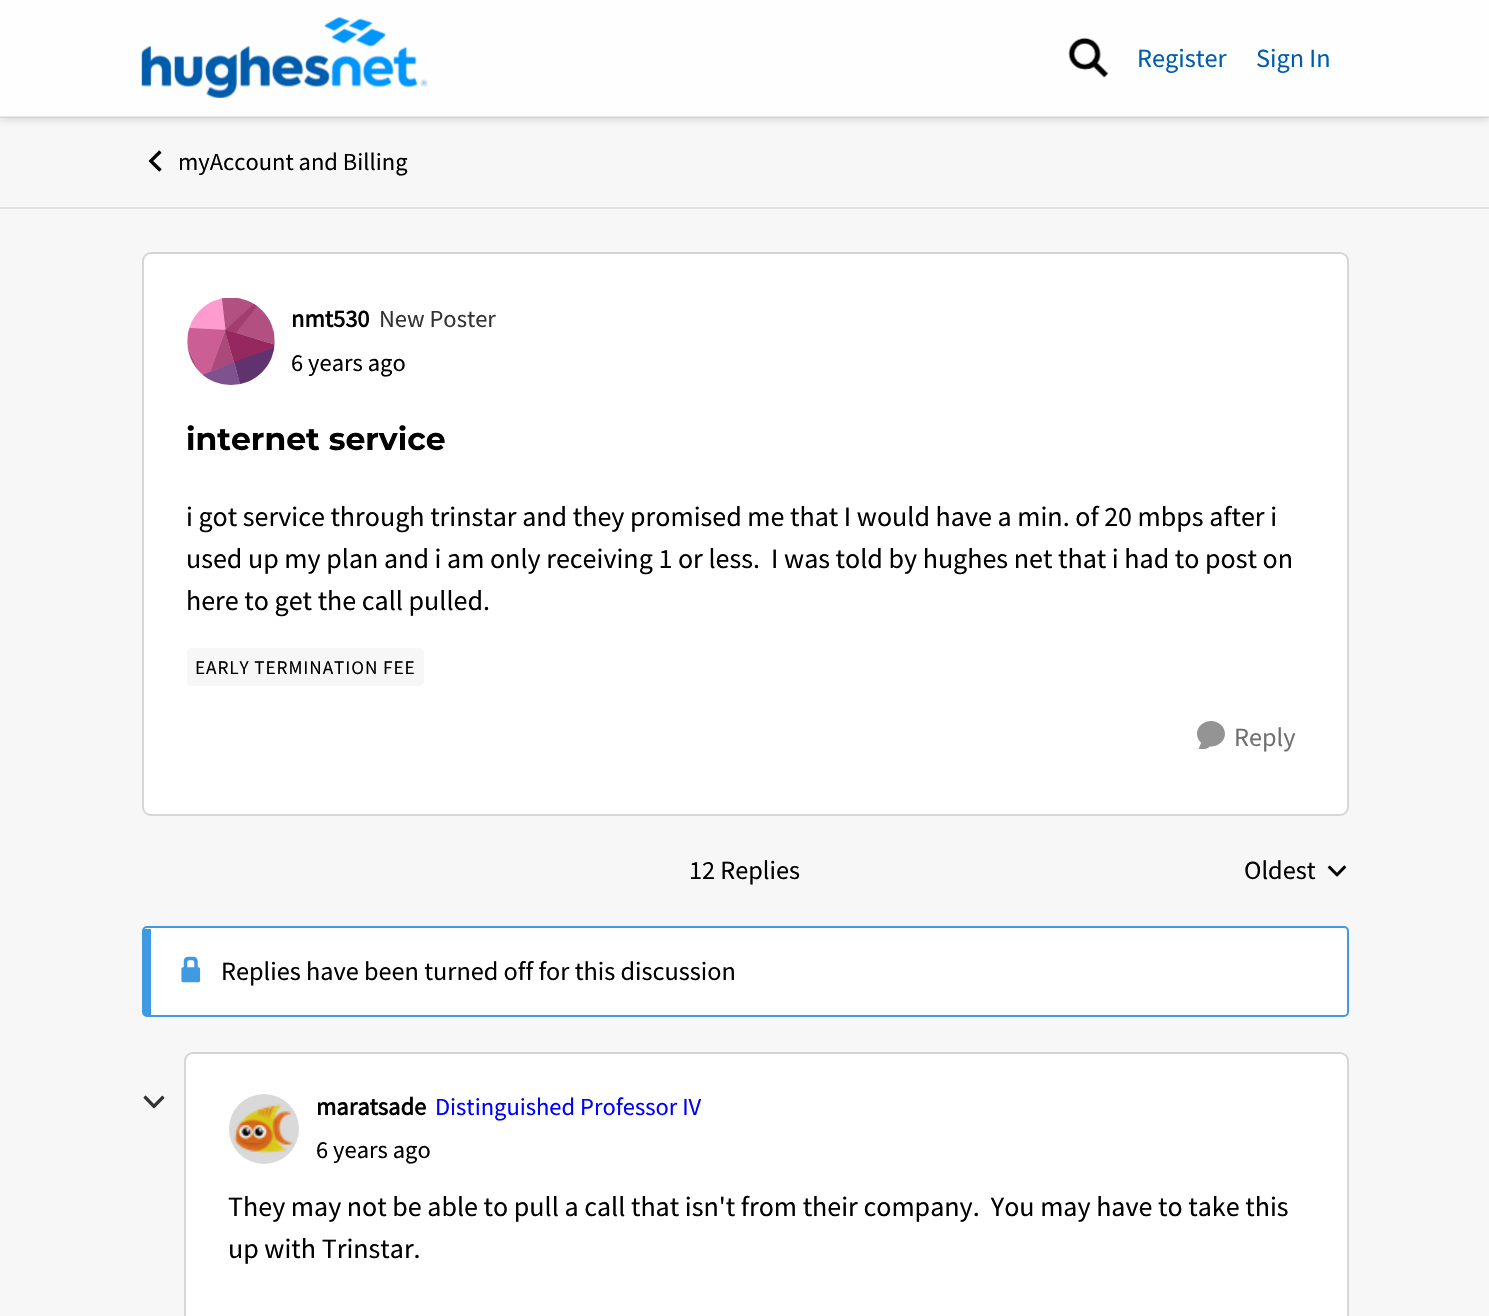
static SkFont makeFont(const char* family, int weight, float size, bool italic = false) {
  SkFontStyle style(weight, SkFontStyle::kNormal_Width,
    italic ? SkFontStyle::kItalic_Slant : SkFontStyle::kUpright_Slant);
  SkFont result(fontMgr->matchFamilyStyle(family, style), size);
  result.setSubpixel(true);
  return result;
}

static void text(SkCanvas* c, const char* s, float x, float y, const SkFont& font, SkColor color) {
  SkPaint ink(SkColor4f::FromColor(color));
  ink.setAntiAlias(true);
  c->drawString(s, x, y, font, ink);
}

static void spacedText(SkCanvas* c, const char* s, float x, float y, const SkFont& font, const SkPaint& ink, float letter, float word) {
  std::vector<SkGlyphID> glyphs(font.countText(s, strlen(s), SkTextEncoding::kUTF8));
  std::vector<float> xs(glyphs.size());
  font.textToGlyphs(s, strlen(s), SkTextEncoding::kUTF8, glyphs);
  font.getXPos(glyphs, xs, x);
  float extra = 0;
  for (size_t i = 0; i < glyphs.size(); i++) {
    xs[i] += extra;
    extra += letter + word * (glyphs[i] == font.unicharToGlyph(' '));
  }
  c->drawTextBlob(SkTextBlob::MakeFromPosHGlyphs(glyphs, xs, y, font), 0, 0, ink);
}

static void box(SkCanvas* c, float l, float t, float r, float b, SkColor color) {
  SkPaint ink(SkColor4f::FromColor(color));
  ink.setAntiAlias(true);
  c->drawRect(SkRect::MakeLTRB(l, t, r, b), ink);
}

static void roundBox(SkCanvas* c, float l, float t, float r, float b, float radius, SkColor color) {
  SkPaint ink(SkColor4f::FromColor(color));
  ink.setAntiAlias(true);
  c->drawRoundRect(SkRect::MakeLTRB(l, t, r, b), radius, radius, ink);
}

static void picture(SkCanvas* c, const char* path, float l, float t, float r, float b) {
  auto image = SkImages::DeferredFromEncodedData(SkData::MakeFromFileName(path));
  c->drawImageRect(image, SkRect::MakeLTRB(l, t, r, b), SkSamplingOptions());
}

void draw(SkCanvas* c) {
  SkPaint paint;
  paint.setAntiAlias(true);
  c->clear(0xfff7f7f8);
  paint.setColor(0x1f333333);
  paint.setMaskFilter(SkMaskFilter::MakeBlur(kNormal_SkBlurStyle, 3.5f));
  c->drawRect(SkRect::MakeLTRB(0, 4, 1489, 121), paint);
  paint.setMaskFilter(nullptr);
  box(c, 0, 0, 1489, 117, 0xfffefefe);
  box(c, 0, 116, 1489, 118, 0x14000000);
  picture(c, "img_01.png", 141, 17, 428, 98);
  picture(c, "img_02.png", 1068, 37, 1109, 78);
  SkFont face1 = makeFont("Source Sans Pro", 400, 26.25f);
  text(c, "Register", 1137, 67, face1, 0xff005dac);
  text(c, "Sign In", 1256, 67, face1, 0xff005dac);
  box(c, 0, 207, 1489, 209, 0xffe3e3e4);
  picture(c, "img_03.png", 148, 150, 162, 172);
  SkFont face2 = makeFont("Source Sans Pro", 400, 24.5f);
  text(c, "myAccount and Billing", 178, 170, face2, 0xff000000);
  roundBox(c, 142, 252, 1349, 816, 9, 0xffffffff);
  paint.setStyle(SkPaint::kStroke_Style);
  paint.setStrokeWidth(2);
  paint.setColor(0x29000000);
  c->drawRoundRect(SkRect::MakeLTRB(143, 253, 1348, 815), 8, 8, paint);
  roundBox(c, 187, 298, 275, 385, 43.5f, 0xffd9d9d9);
  picture(c, "img_04.png", 187, 298, 275, 385);
  SkFont face3 = makeFont("Source Sans Pro", 700, 24.5f);
  text(c, "nmt530", 291, 327, face3, 0xff000000);
  text(c, "New Poster", 379, 327, face2, 0xff333333);
  text(c, "6 years ago", 291, 371, face2, 0xff000000);
  SkFont face4 = makeFont("Montserrat", 700, 31.5f);
  text(c, "internet service", 186, 450, face4, 0xff000000);
  SkFont face5 = makeFont("Source Sans Pro", 400, 28);
  text(c, "i got service through trinstar and they promised me that I would have a min. of 20 mbps after i", 186, 526, face5, 0xff000000);
  text(c, "used up my plan and i am only receiving 1 or less.  I was told by hughes net that i had to post on", 186, 568, face5, 0xff000000);
  text(c, "here to get the call pulled.", 186, 610, face5, 0xff000000);
  roundBox(c, 187, 648, 424, 686, 5, 0xfff7f7f7);
  SkFont face6 = makeFont("Source Sans Pro", 400, 19.25f);
  paint.setStyle(SkPaint::kFill_Style);
  paint.setColor(0xff000000);
  spacedText(c, "EARLY TERMINATION FEE", 195, 674, face6, paint, 0.9f, 0);
  picture(c, "img_05.png", 1197, 721, 1225, 749);
  text(c, "Reply", 1234, 746, face1, 0xff707070);
  text(c, "12 Replies", 689, 879, face1, 0xff000000);
  text(c, "Oldest", 1244, 879, face1, 0xff000000);
  picture(c, "img_06.png", 1327, 865, 1347, 877);
  paint.setColor(0xffffffff);
  c->drawPath(SkPathBuilder().moveTo(150, 928).lineTo(1344, 928).cubicTo(1346, 928, 1348, 929, 1348, 931).lineTo(1348, 1012).cubicTo(1348, 1013, 1346, 1015, 1344, 1015).lineTo(150, 1015).close().detach(), paint);
  paint.setStyle(SkPaint::kStroke_Style);
  paint.setColor(0xff409ae2);
  c->drawRoundRect(SkRect::MakeLTRB(143, 927, 1348, 1016), 4, 4, paint);
  box(c, 144, 929, 151, 1015, 0xff409ae2);
  picture(c, "img_07.png", 181, 956, 201, 983);
  text(c, "Replies have been turned off for this discussion", 221, 980, face1, 0xff000000);
  picture(c, "img_08.png", 143, 1095, 165, 1109);
  roundBox(c, 184, 1052, 1349, 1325, 9, 0xffffffff);
  paint.setColor(0x29000000);
  c->drawRoundRect(SkRect::MakeLTRB(185, 1053, 1348, 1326), 8, 8, paint);
  paint.setStyle(SkPaint::kFill_Style);
  paint.setColor(0xffd9d9d9);
  c->drawCircle(264, 1129, 35, paint);
  picture(c, "img_09.png", 234, 1104, 293, 1154);
  text(c, "maratsade", 316, 1115, face3, 0xff000000);
  text(c, "Distinguished Professor IV", 435, 1115, face2, 0xff0000ff);
  text(c, "6 years ago", 316, 1158, face2, 0xff000000);
  text(c, "They may not be able to pull a call that isn't from their company.  You may have to take this", 228, 1216, face5, 0xff000000);
  text(c, "up with Trinstar.", 228, 1258, face5, 0xff000000);
}
